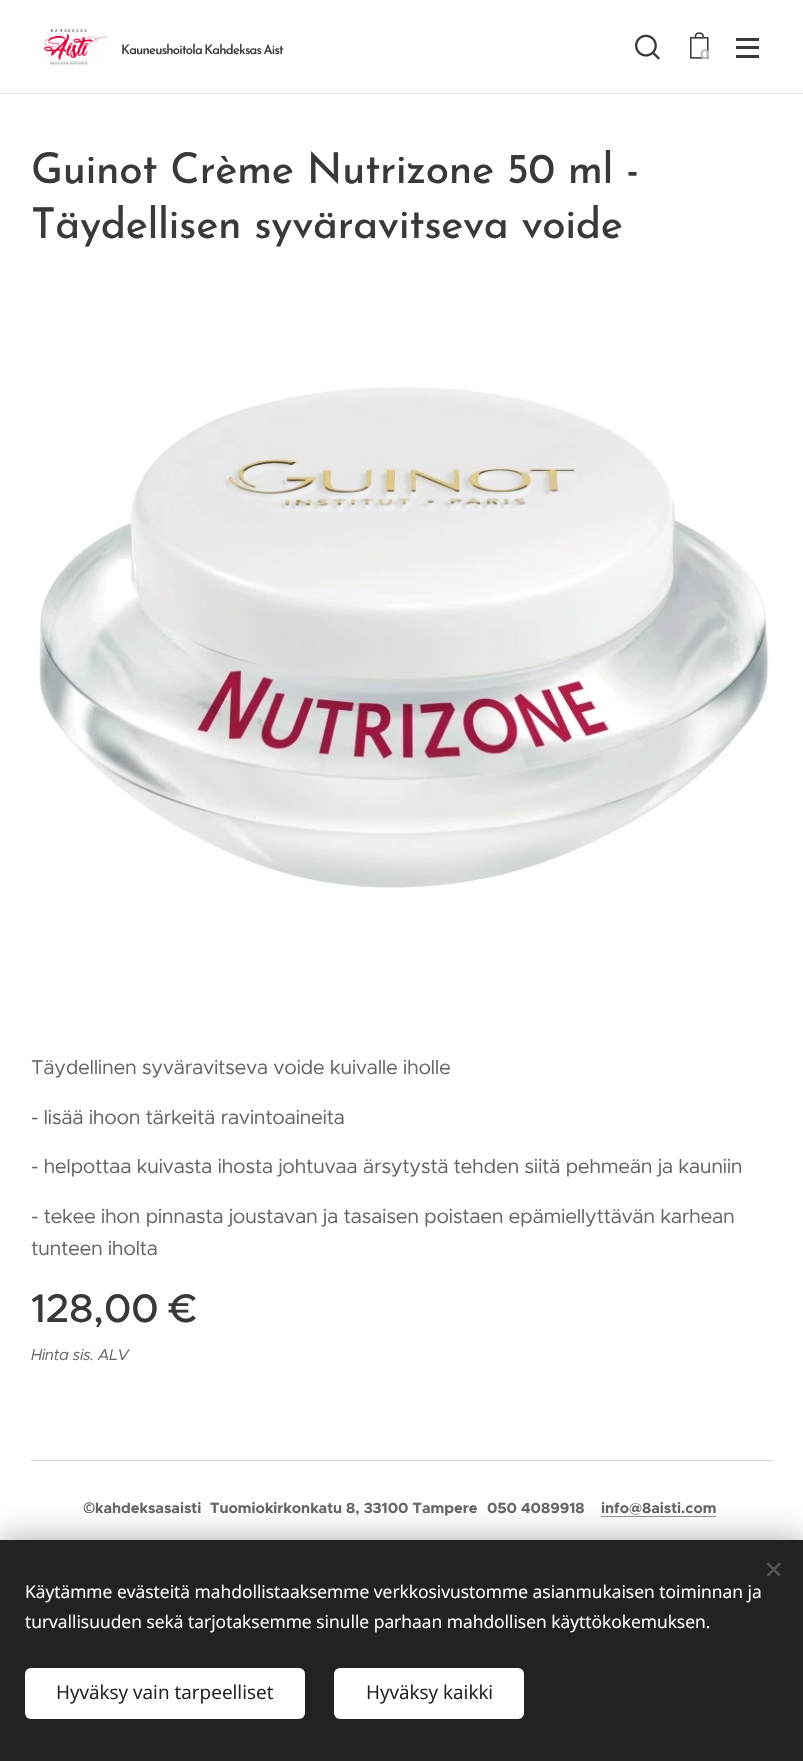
static SkFont makeFont(const char* family, int weight, float size, bool italic = false) {
  SkFontStyle style(weight, SkFontStyle::kNormal_Width,
    italic ? SkFontStyle::kItalic_Slant : SkFontStyle::kUpright_Slant);
  SkFont result(fontMgr->matchFamilyStyle(family, style), size);
  result.setSubpixel(true);
  return result;
}

static void text(SkCanvas* c, const char* s, float x, float y, const SkFont& font, SkColor color) {
  SkPaint ink(SkColor4f::FromColor(color));
  ink.setAntiAlias(true);
  c->drawString(s, x, y, font, ink);
}

static void spacedText(SkCanvas* c, const char* s, float x, float y, const SkFont& font, const SkPaint& ink, float letter, float word) {
  std::vector<SkGlyphID> glyphs(font.countText(s, strlen(s), SkTextEncoding::kUTF8));
  std::vector<float> xs(glyphs.size());
  font.textToGlyphs(s, strlen(s), SkTextEncoding::kUTF8, glyphs);
  font.getXPos(glyphs, xs, x);
  float extra = 0;
  for (size_t i = 0; i < glyphs.size(); i++) {
    xs[i] += extra;
    extra += letter + word * (glyphs[i] == font.unicharToGlyph(' '));
  }
  c->drawTextBlob(SkTextBlob::MakeFromPosHGlyphs(glyphs, xs, y, font), 0, 0, ink);
}

static void box(SkCanvas* c, float l, float t, float r, float b, SkColor color) {
  SkPaint ink(SkColor4f::FromColor(color));
  ink.setAntiAlias(true);
  c->drawRect(SkRect::MakeLTRB(l, t, r, b), ink);
}

static void roundBox(SkCanvas* c, float l, float t, float r, float b, float radius, SkColor color) {
  SkPaint ink(SkColor4f::FromColor(color));
  ink.setAntiAlias(true);
  c->drawRoundRect(SkRect::MakeLTRB(l, t, r, b), radius, radius, ink);
}

static void picture(SkCanvas* c, const char* path, float l, float t, float r, float b) {
  auto image = SkImages::DeferredFromEncodedData(SkData::MakeFromFileName(path));
  c->drawImageRect(image, SkRect::MakeLTRB(l, t, r, b), SkSamplingOptions());
}

void draw(SkCanvas* c) {
  SkPaint paint;
  paint.setAntiAlias(true);
  c->clear(0xffffffff);
  box(c, 0, 93, 803, 94, 0xffe8e8e8);
  picture(c, "img_01.png", 43, 28, 107, 66);
  SkFont face1 = makeFont("Josefin Sans", 500, 13.1f);
  paint.setColor(0xff393939);
  spacedText(c, "Kauneushoitola Kahdeksas Aist", 121, 54, face1, paint, -0.8f, -1);
  picture(c, "img_02.png", 635, 34, 660, 60);
  picture(c, "img_03.png", 690, 32, 709, 59);
  SkFont face2 = makeFont("Montserrat", 700, 14);
  text(c, "0", 700, 59, face2, 0xffc2c2c2);
  box(c, 736, 46, 759, 49, 0xff393939);
  box(c, 736, 38, 759, 41, 0xff393939);
  box(c, 736, 55, 759, 58, 0xff393939);
  SkFont face3 = makeFont("Josefin Sans", 400, 42.5f);
  spacedText(c, "Guinot Crème Nutrizone 50 ml -", 31, 183, face3, paint, -0.4f, 0);
  spacedText(c, "Täydellisen syväravitseva voide", 31, 238, face3, paint, -0.4f, 0);
  picture(c, "img_04.png", 39, 387, 771, 888);
  SkFont face4 = makeFont("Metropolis", 400, 20);
  paint.setColor(0xff666666);
  spacedText(c, "Täydellinen syväravitseva voide kuivalle iholle", 31, 1074, face4, paint, -0.4f, 0);
  spacedText(c, "- lisää ihoon tärkeitä ravintoaineita", 31, 1124, face4, paint, -0.4f, 0);
  spacedText(c, "- helpottaa kuivasta ihosta johtuvaa ärsytystä tehden siitä pehmeän ja kauniin", 31, 1173, face4, paint, -0.4f, 0);
  spacedText(c, "- tekee ihon pinnasta joustavan ja tasaisen poistaen epämiellyttävän karhean", 31, 1223, face4, paint, -0.4f, 0);
  spacedText(c, "tunteen iholta", 31, 1255, face4, paint, -0.4f, 0);
  SkFont face5 = makeFont("Metropolis", 500, 40);
  paint.setColor(0xff393939);
  spacedText(c, "128,00 €", 31, 1322, face5, paint, -0.4f, 0);
  SkFont face6 = makeFont("Metropolis", 400, 15.5f, true);
  paint.setColor(0xff666666);
  spacedText(c, "Hinta sis. ALV", 31, 1360, face6, paint, -0.4f, 0);
  box(c, 31, 1460, 773, 1461, 0xffd4d4d4);
  SkFont face7 = makeFont("Noto Sans", 700, 14.75f);
  text(c, "©", 83, 1513, face7, 0xff666666);
  SkFont face8 = makeFont("Metropolis", 700, 14.75f);
  text(c, "kahdeksasaisti", 95, 1513, face8, 0xff666666);
  text(c, "Tuomiokirkonkatu", 210, 1513, face8, 0xff666666);
  text(c, "8, 33100 Tampere", 346, 1513, face8, 0xff666666);
  text(c, "050 4089918", 487, 1513, face8, 0xff666666);
  text(c, "info@8aisti.com", 601, 1513, face8, 0xff666666);
  box(c, 601, 1516, 716, 1517, 0xff949494);
  paint.setColor(0x54000000);
  paint.setMaskFilter(SkMaskFilter::MakeBlur(kNormal_SkBlurStyle, 15.5f));
  c->drawRect(SkRect::MakeLTRB(0, 1540, 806, 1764), paint);
  paint.setMaskFilter(nullptr);
  box(c, 0, 1540, 803, 1761, 0xff222222);
  paint.setColor(0xff555555);
  c->drawPath(SkPathBuilder().moveTo(766.5f, 1575).lineTo(779, 1562.5f).lineTo(781, 1564).lineTo(768.5f, 1576.5f).close().detach(), paint);
  c->drawPath(SkPathBuilder().moveTo(768.5f, 1562.5f).lineTo(781, 1575).lineTo(779, 1576.5f).lineTo(766.5f, 1564).close().detach(), paint);
  SkFont face9 = makeFont("Open Sans", 400, 17.5f);
  text(c, "Käytämme evästeitä mahdollistaaksemme verkkosivustomme asianmukaisen toiminnan ja", 25, 1598, face9, 0xffffffff);
  text(c, "turvallisuuden sekä tarjotaksemme sinulle parhaan mahdollisen käyttökokemuksen.", 25, 1628, face9, 0xffffffff);
  roundBox(c, 25, 1668, 305, 1719, 6, 0xffffffff);
  SkFont face10 = makeFont("Open Sans", 400, 19);
  text(c, "Hyväksy vain tarpeelliset", 56, 1699, face10, 0xff222222);
  roundBox(c, 334, 1668, 524, 1719, 6, 0xffffffff);
  text(c, "Hyväksy kaikki", 366, 1699, face10, 0xff222222);
}
